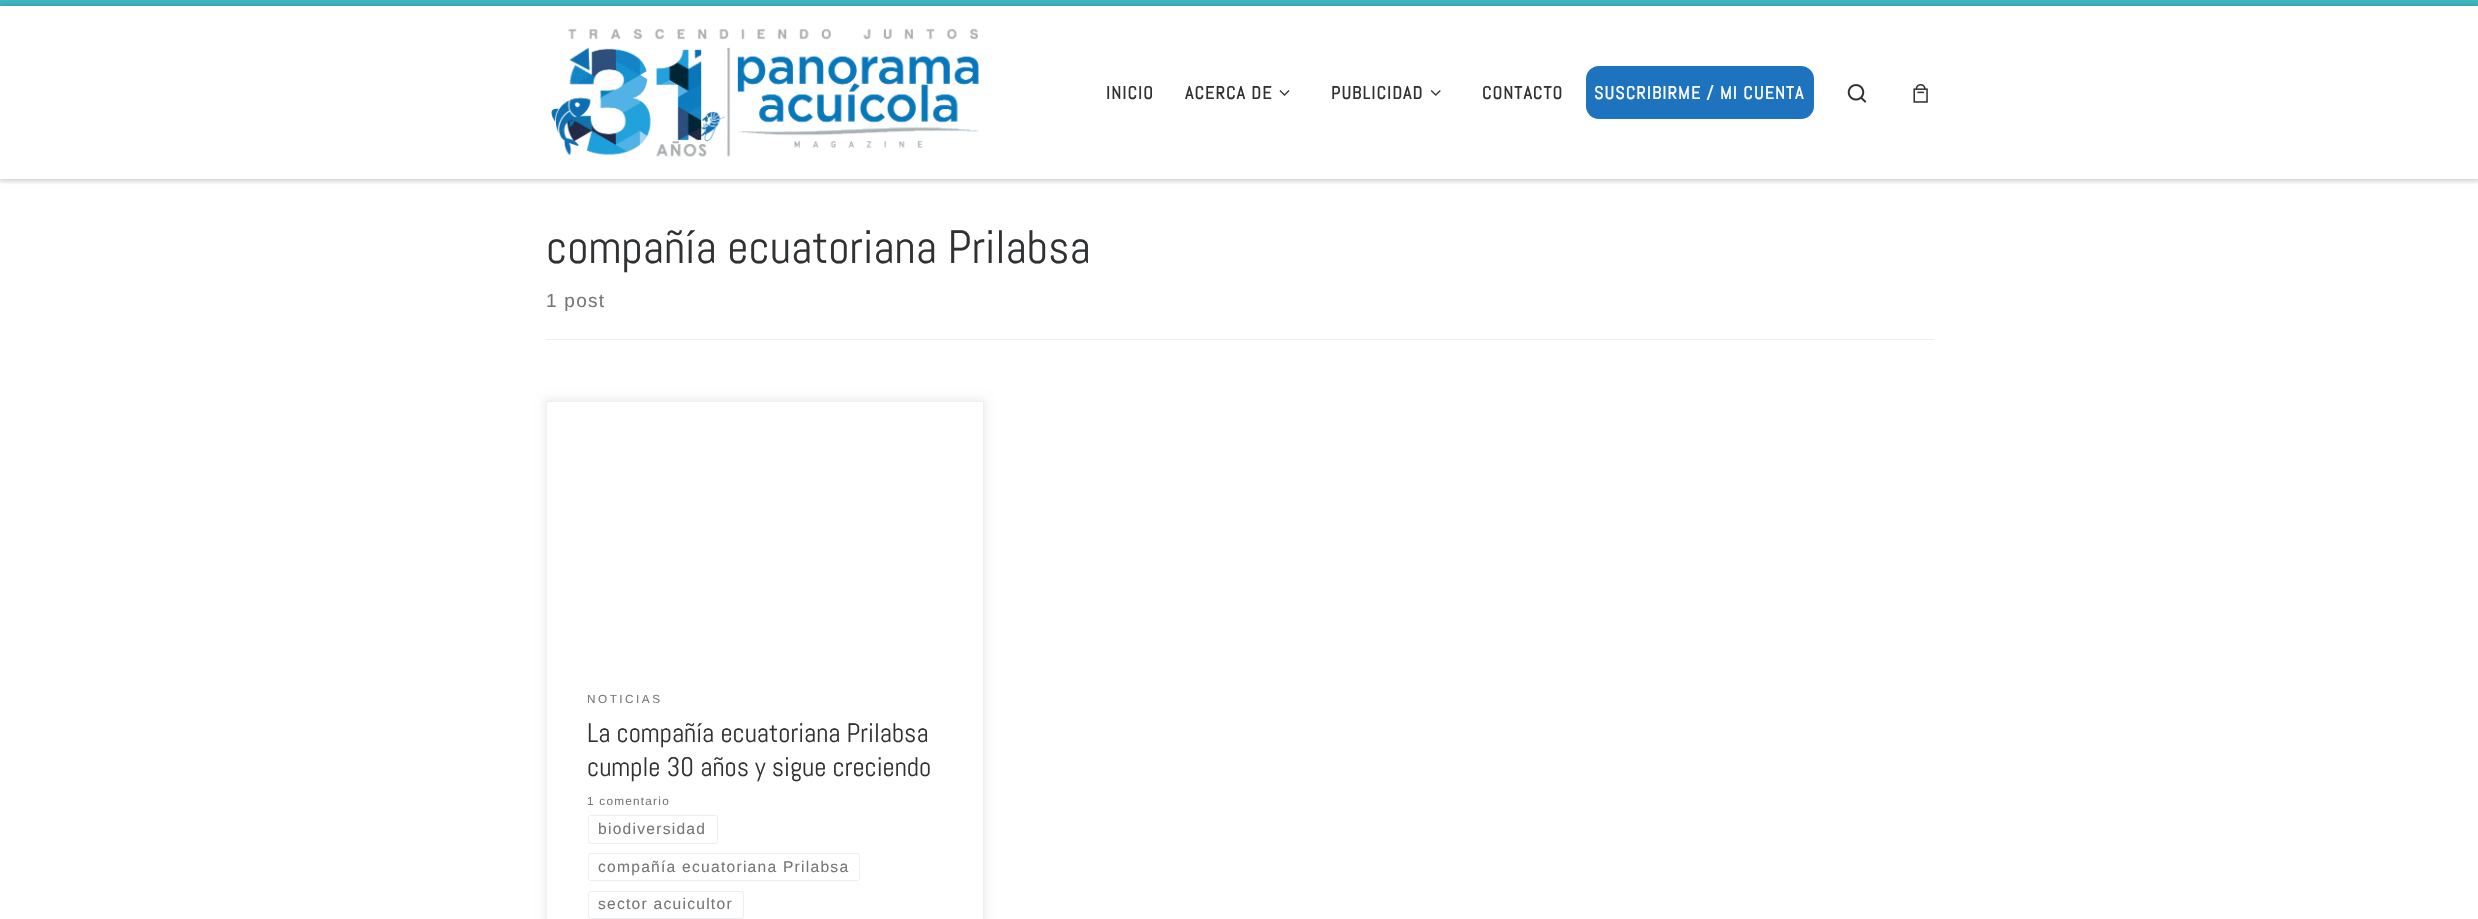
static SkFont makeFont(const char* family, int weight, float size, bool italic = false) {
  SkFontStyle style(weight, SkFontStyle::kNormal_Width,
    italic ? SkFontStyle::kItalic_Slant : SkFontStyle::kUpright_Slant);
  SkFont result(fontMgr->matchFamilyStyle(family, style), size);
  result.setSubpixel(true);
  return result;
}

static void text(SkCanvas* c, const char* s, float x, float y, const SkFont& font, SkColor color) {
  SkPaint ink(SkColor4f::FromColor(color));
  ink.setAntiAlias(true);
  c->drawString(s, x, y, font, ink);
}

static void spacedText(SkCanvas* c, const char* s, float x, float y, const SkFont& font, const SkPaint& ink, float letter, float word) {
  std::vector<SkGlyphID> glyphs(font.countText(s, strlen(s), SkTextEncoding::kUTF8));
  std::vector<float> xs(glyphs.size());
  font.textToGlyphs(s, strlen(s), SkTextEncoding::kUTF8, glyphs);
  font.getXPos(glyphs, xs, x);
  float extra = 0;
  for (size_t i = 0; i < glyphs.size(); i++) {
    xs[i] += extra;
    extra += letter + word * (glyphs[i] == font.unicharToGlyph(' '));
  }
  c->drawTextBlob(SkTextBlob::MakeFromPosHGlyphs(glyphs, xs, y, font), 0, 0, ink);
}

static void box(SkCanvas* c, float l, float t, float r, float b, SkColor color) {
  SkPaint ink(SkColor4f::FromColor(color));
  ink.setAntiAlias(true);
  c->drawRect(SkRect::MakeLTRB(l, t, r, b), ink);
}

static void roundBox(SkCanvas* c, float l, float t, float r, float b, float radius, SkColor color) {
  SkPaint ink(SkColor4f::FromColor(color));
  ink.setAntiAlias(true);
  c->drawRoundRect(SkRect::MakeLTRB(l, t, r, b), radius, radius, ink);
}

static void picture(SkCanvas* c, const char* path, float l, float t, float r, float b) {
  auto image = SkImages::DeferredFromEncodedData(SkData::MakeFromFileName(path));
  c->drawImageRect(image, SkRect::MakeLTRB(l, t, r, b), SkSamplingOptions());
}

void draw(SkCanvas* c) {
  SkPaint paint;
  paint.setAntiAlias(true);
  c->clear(0xffffffff);
  paint.setColor(0x14666666);
  paint.setMaskFilter(SkMaskFilter::MakeBlur(kNormal_SkBlurStyle, 1));
  c->drawRect(SkRect::MakeLTRB(0, 3, 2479, 183), paint);
  paint.setMaskFilter(nullptr);
  box(c, 0, 0, 2478, 6, 0xff3cb8c1);
  paint.setColor(0xffefefef);
  c->drawPath(SkPathBuilder().moveTo(0, 179).lineTo(0, 180).lineTo(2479, 180).lineTo(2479, 8).lineTo(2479, 179).close().detach(), paint);
  paint.setColor(0x33000000);
  paint.setMaskFilter(SkMaskFilter::MakeBlur(kNormal_SkBlurStyle, 3));
  c->drawRect(SkRect::MakeLTRB(0, 6, 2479, 179), paint);
  paint.setMaskFilter(nullptr);
  box(c, 0, 6, 2478, 179, 0xffffffff);
  picture(c, "img_01.png", 551, 28, 979, 157);
  SkFont face1 = makeFont("Abel", 700, 17.75f);
  paint.setColor(0xff303133);
  spacedText(c, "INICIO", 1106, 99, face1, paint, 1.25f, 0);
  spacedText(c, "ACERCA DE", 1185, 99, face1, paint, 1.25f, 0);
  picture(c, "img_02.png", 1279, 90, 1290, 96);
  spacedText(c, "PUBLICIDAD", 1331, 99, face1, paint, 1.25f, 0);
  picture(c, "img_03.png", 1430, 90, 1441, 96);
  spacedText(c, "CONTACTO", 1482, 99, face1, paint, 1.25f, 0);
  roundBox(c, 1586, 66, 1814, 119, 13, 0xff1e73be);
  paint.setColor(0xffffffff);
  spacedText(c, "SUSCRIBIRME / MI CUENTA", 1594, 99, face1, paint, 1.25f, 0);
  picture(c, "img_04.png", 1847, 84, 1867, 103);
  picture(c, "img_05.png", 1913, 84, 1928, 103);
  SkFont face2 = makeFont("Abel", 400, 46.7f);
  text(c, "compañía ecuatoriana Prilabsa", 546, 263, face2, 0xff303133);
  SkFont face3 = makeFont("Liberation Sans", 400, 19);
  paint.setColor(0xff777777);
  spacedText(c, "1 post", 546, 307, face3, paint, 1.25f, 0);
  box(c, 546, 339, 1934, 340, 0xffeceeef);
  paint.setColor(0x12000000);
  paint.setMaskFilter(SkMaskFilter::MakeBlur(kNormal_SkBlurStyle, 4));
  c->drawRect(SkRect::MakeLTRB(544, 399, 986, 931), paint);
  paint.setMaskFilter(nullptr);
  box(c, 547, 402, 983, 919, 0xffffffff);
  paint.setStyle(SkPaint::kStroke_Style);
  paint.setStrokeWidth(1);
  paint.setColor(0xffeceeef);
  c->drawRoundRect(SkRect::MakeLTRB(588.5f, 815.5f, 717.5f, 843.5f), 2, 2, paint);
  c->drawRoundRect(SkRect::MakeLTRB(588.5f, 853.5f, 859.5f, 880.5f), 2, 2, paint);
  c->drawRoundRect(SkRect::MakeLTRB(588.5f, 891.5f, 743.5f, 918.5f), 2, 2, paint);
  paint.setColor(0xffefefef);
  c->drawRect(SkRect::MakeLTRB(546.5f, 401.5f, 983.5f, 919.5f), paint);
  SkFont face4 = makeFont("Liberation Sans", 400, 11.75f);
  paint.setStyle(SkPaint::kFill_Style);
  paint.setColor(0xff777777);
  spacedText(c, "NOTICIAS", 587, 703, face4, paint, 2.5f, 0);
  SkFont face5 = makeFont("Abel", 400, 26.75f);
  text(c, "La compañía ecuatoriana Prilabsa", 587, 742, face5, 0xff303133);
  text(c, "cumple 30 años y sigue creciendo", 587, 776, face5, 0xff303133);
  spacedText(c, "1 comentario", 587, 805, face4, paint, 1.25f, 0);
  SkFont face6 = makeFont("Liberation Sans", 400, 15.6f);
  spacedText(c, "biodiversidad", 598, 834, face6, paint, 1.25f, 0);
  spacedText(c, "compañía ecuatoriana Prilabsa", 598, 872, face6, paint, 1.25f, 0);
  spacedText(c, "sector acuicultor", 598, 909, face6, paint, 1.25f, 0);
}
